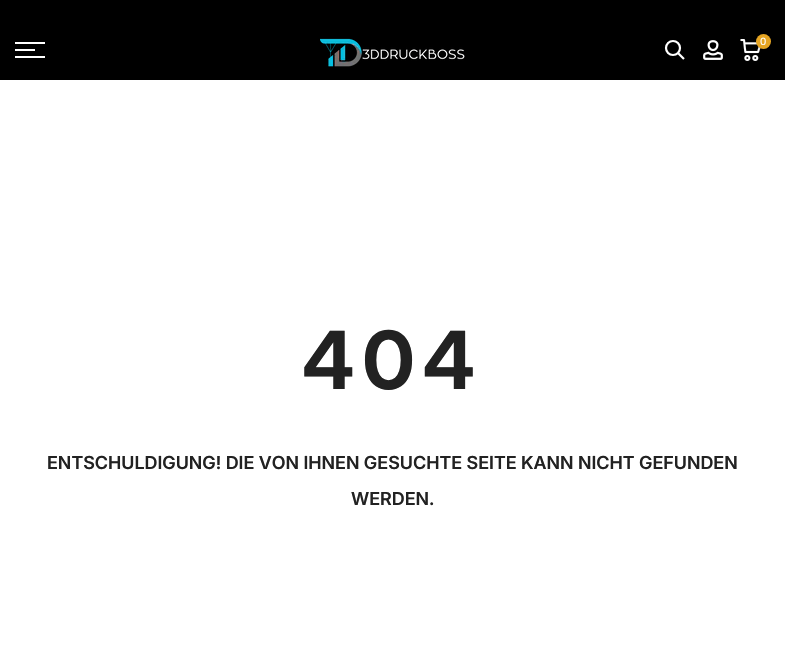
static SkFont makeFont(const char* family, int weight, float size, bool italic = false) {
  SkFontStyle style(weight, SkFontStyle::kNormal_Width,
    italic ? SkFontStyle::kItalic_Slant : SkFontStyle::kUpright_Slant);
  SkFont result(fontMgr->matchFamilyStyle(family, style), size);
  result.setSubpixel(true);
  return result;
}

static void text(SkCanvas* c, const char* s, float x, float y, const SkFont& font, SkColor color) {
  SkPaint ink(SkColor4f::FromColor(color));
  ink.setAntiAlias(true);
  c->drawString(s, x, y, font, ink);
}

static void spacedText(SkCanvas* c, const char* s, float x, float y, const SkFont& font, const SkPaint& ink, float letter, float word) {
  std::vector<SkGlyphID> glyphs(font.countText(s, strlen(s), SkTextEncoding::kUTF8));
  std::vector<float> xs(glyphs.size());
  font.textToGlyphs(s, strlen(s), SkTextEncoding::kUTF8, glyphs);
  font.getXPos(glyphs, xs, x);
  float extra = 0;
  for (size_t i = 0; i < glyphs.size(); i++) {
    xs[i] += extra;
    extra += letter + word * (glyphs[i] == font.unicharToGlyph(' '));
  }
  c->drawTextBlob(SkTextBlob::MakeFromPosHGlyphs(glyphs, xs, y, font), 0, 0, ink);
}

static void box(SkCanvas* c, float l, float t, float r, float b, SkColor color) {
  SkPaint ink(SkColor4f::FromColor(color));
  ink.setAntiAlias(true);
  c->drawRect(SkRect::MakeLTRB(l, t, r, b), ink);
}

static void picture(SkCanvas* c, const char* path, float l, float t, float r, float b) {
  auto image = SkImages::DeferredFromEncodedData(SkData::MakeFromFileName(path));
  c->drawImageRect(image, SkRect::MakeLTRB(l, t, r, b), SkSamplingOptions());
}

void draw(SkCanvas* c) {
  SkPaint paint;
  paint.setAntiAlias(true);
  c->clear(0xffffffff);
  box(c, 0, 0, 785, 80, 0xff000000);
  box(c, 15, 42, 45, 44, 0xffffffff);
  box(c, 15, 49, 35, 51, 0xffffffff);
  box(c, 15, 56, 45, 58, 0xffffffff);
  picture(c, "img_01.png", 320, 38, 465, 67);
  paint.setStyle(SkPaint::kStroke_Style);
  paint.setStrokeWidth(2.2f);
  paint.setColor(0xffffffff);
  c->drawCircle(673, 48, 7, paint);
  c->drawPath(SkPathBuilder().moveTo(678, 53).lineTo(684, 59).detach(), paint);
  picture(c, "img_02.png", 703, 40, 723, 60);
  picture(c, "img_03.png", 740, 39, 761, 61);
  paint.setStyle(SkPaint::kFill_Style);
  paint.setColor(0x4d000000);
  paint.setMaskFilter(SkMaskFilter::MakeBlur(kNormal_SkBlurStyle, 1.5f));
  c->drawRoundRect(SkRect::MakeLTRB(757, 35, 772, 50), 7.5f, 7.5f, paint);
  paint.setMaskFilter(nullptr);
  paint.setColor(0xffe6a522);
  c->drawCircle(763.5f, 41.5f, 7.5f, paint);
  SkFont face1 = makeFont("Inter", 400, 10);
  text(c, "0", 760, 45, face1, 0xffffffff);
  SkFont face2 = makeFont("Inter", 700, 80);
  paint.setColor(0xff222222);
  spacedText(c, "404", 302, 389, face2, paint, 8, 0);
  SkFont face3 = makeFont("Inter", 600, 18);
  text(c, "ENTSCHULDIGUNG! DIE VON IHNEN GESUCHTE SEITE KANN NICHT GEFUNDEN", 47, 469, face3, 0xff222222);
  text(c, "WERDEN.", 351, 505, face3, 0xff222222);
}
